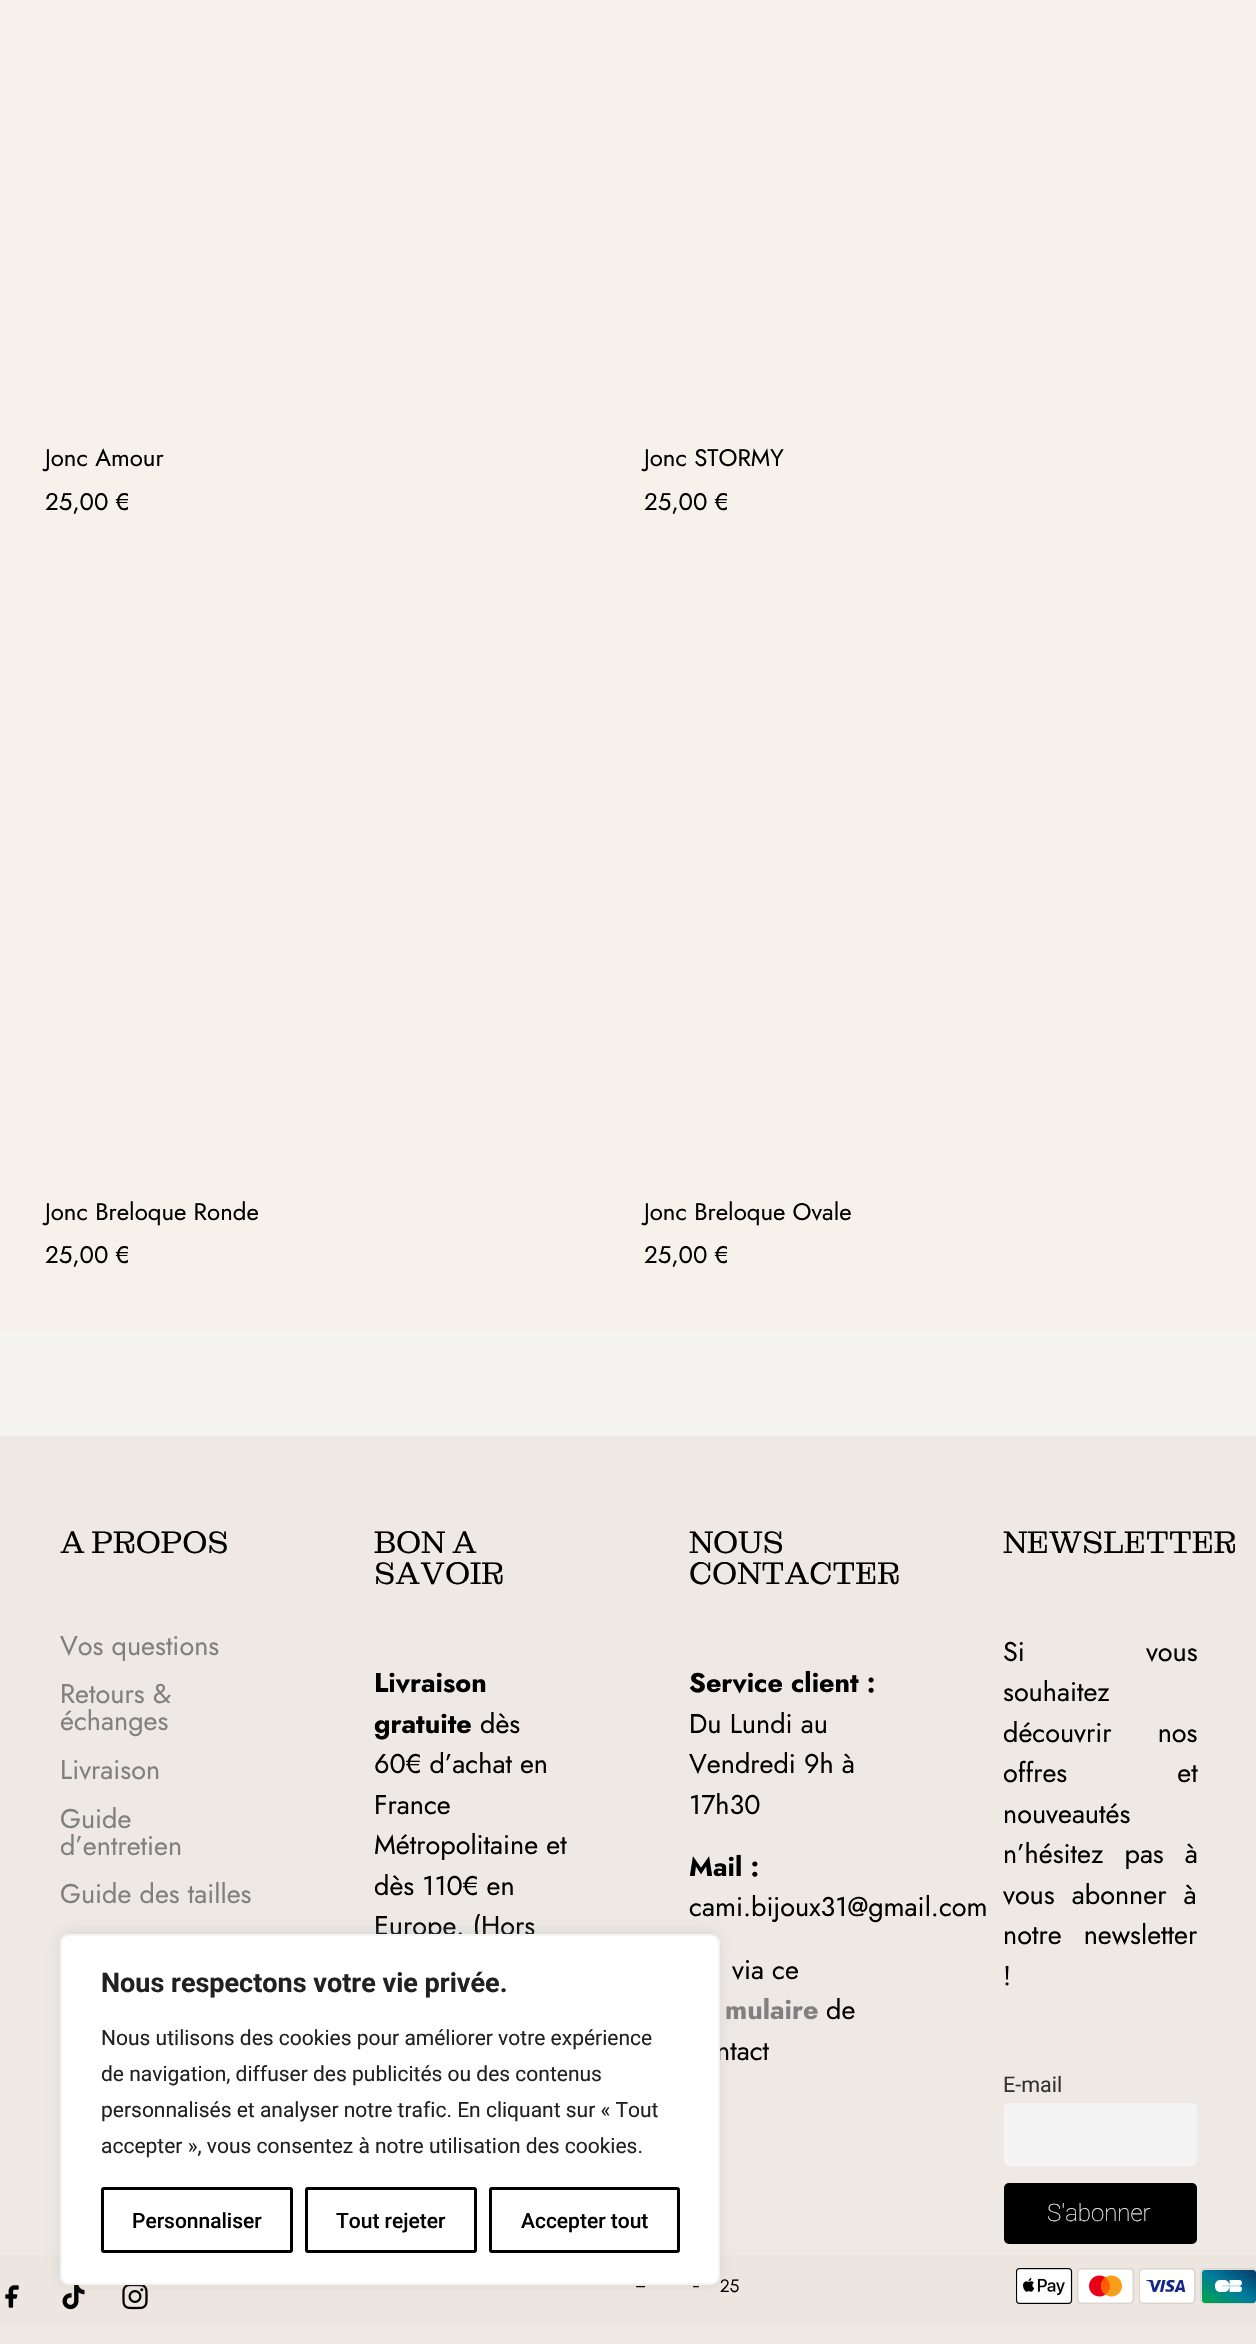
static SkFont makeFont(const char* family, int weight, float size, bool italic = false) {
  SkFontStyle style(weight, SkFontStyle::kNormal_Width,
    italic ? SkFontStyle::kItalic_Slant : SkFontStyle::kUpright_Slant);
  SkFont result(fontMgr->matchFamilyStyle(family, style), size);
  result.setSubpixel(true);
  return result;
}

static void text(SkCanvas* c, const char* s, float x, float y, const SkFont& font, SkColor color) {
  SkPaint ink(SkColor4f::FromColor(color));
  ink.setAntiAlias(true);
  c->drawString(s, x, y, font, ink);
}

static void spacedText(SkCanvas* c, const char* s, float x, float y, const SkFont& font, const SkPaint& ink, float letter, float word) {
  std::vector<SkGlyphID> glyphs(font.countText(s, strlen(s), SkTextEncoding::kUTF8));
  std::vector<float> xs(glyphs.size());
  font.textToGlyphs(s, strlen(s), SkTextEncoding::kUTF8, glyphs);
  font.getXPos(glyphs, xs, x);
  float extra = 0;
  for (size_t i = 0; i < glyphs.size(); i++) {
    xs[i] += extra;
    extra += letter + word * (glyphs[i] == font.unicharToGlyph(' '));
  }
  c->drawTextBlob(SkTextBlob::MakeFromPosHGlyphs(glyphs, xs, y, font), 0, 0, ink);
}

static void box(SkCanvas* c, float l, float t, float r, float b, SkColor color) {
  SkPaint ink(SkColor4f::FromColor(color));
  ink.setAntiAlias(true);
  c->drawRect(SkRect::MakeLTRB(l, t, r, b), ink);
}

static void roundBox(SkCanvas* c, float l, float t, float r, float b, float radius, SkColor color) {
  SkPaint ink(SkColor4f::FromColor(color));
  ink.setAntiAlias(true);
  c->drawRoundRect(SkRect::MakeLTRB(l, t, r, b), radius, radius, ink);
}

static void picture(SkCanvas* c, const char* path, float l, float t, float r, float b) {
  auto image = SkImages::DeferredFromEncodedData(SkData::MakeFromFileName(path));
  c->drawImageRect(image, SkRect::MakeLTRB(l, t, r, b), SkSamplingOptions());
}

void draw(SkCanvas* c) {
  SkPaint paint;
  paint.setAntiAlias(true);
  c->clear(0xfff5f4f1);
  box(c, 0, 0, 1256, 1331, 0xfff6f1eb);
  SkFont face1 = makeFont("Jost", 400, 24);
  text(c, "Jonc Amour", 45, 466, face1, 0xff000000);
  text(c, "25,00 €", 45, 510, face1, 0xff000000);
  text(c, "Jonc STORMY", 644, 466, face1, 0xff000000);
  text(c, "25,00 €", 644, 510, face1, 0xff000000);
  text(c, "Jonc Breloque Ronde", 45, 1220, face1, 0xff000000);
  text(c, "25,00 €", 45, 1263, face1, 0xff000000);
  text(c, "Jonc Breloque Ovale", 644, 1220, face1, 0xff000000);
  text(c, "25,00 €", 644, 1263, face1, 0xff000000);
  box(c, 0, 1436, 1256, 2344, 0xffeee9e5);
  SkFont face2 = makeFont("Montagu Slab", 400, 31.5f);
  text(c, "A PROPOS", 60, 1553, face2, 0xff000000);
  SkFont face3 = makeFont("Jost", 400, 27);
  text(c, "Vos questions", 60, 1655, face3, 0xff808080);
  text(c, "Retours &", 60, 1703, face3, 0xff808080);
  text(c, "échanges", 60, 1730, face3, 0xff808080);
  text(c, "Livraison", 60, 1779, face3, 0xff808080);
  text(c, "Guide", 60, 1828, face3, 0xff808080);
  text(c, "d’entretien", 60, 1855, face3, 0xff808080);
  text(c, "Guide des tailles", 60, 1903, face3, 0xff808080);
  text(c, "BON A", 374, 1553, face2, 0xff000000);
  text(c, "SAVOIR", 374, 1584, face2, 0xff000000);
  SkFont face4 = makeFont("Jost", 700, 27);
  text(c, "Livraison", 374, 1692, face4, 0xff000000);
  text(c, "gratuite", 374, 1733, face4, 0xff000000);
  text(c, "dès", 480, 1733, face3, 0xff000000);
  text(c, "60€ d’achat en", 374, 1773, face3, 0xff000000);
  text(c, "France", 374, 1814, face3, 0xff000000);
  text(c, "Métropolitaine et", 374, 1854, face3, 0xff000000);
  text(c, "dès 110€ en", 374, 1895, face3, 0xff000000);
  text(c, "Europe. (Hors", 374, 1935, face3, 0xff000000);
  text(c, "NOUS", 689, 1553, face2, 0xff000000);
  text(c, "CONTACTER", 689, 1584, face2, 0xff000000);
  text(c, "Service client :", 689, 1692, face4, 0xff000000);
  text(c, "Du Lundi au", 689, 1733, face3, 0xff000000);
  text(c, "Vendredi 9h à", 689, 1773, face3, 0xff000000);
  text(c, "17h30", 689, 1814, face3, 0xff000000);
  text(c, "Mail :", 689, 1876, face4, 0xff000000);
  text(c, "cami.bijoux31@gmail.com", 689, 1916, face3, 0xff000000);
  text(c, "via ce", 732, 1979, face3, 0xff000000);
  text(c, "mulaire", 725, 2019, face4, 0xff808080);
  text(c, "de", 826, 2019, face3, 0xff000000);
  text(c, "ntact", 716, 2060, face3, 0xff000000);
  text(c, "NEWSLETTER", 1003, 1553, face2, 0xff000000);
  paint.setColor(0xff000000);
  spacedText(c, "Si vous", 1003, 1661, face3, paint, 0, 113);
  text(c, "souhaitez", 1003, 1701, face3, 0xff000000);
  spacedText(c, "découvrir nos", 1003, 1742, face3, paint, 0, 38);
  spacedText(c, "offres et", 1003, 1782, face3, paint, 0, 102);
  text(c, "nouveautés", 1003, 1823, face3, 0xff000000);
  spacedText(c, "n’hésitez pas à", 1003, 1863, face3, paint, 0, 13);
  spacedText(c, "vous abonner à", 1003, 1904, face3, paint, 0, 9);
  spacedText(c, "notre newsletter", 1003, 1944, face3, paint, 0, 14);
  text(c, "!", 1003, 1985, face3, 0xff000000);
  SkFont face5 = makeFont("Roboto", 400, 21.5f);
  text(c, "E-mail", 1003, 2092, face5, 0xff333333);
  roundBox(c, 1004, 2103, 1197, 2166, 5, 0xfff4f4f4);
  roundBox(c, 1004, 2183, 1197, 2244, 5, 0xff000000);
  SkFont face6 = makeFont("Roboto", 100, 24);
  text(c, "S'abonner", 1047, 2221, face6, 0xffffffff);
  box(c, 0, 2255, 1256, 2324, 0xffece5e0);
  picture(c, "img_01.png", 5, 2285, 19, 2308);
  picture(c, "img_02.png", 62, 2285, 85, 2310);
  picture(c, "img_03.png", 122, 2285, 148, 2310);
  SkFont face7 = makeFont("Urbanist", 400, 18);
  text(c, "–", 635, 2292, face7, 0xff000000);
  text(c, "-", 692, 2292, face7, 0xff000000);
  text(c, "25", 720, 2292, face7, 0xff000000);
  picture(c, "img_04.png", 1016, 2268, 1073, 2304);
  picture(c, "img_05.png", 1077, 2268, 1134, 2304);
  picture(c, "img_06.png", 1139, 2268, 1196, 2304);
  picture(c, "img_07.png", 1200, 2268, 1256, 2304);
  paint.setColor(0x4dacabab);
  paint.setMaskFilter(SkMaskFilter::MakeBlur(kNormal_SkBlurStyle, 7.5f));
  c->drawRoundRect(SkRect::MakeLTRB(60, 1932, 720, 2283), 9, 9, paint);
  paint.setMaskFilter(nullptr);
  paint.setColor(0xffffffff);
  c->drawRoundRect(SkRect::MakeLTRB(61, 1935, 719, 2284), 8, 8, paint);
  paint.setStyle(SkPaint::kStroke_Style);
  paint.setStrokeWidth(2);
  paint.setColor(0xfff4f4f4);
  c->drawRoundRect(SkRect::MakeLTRB(61, 1935, 719, 2284), 8, 8, paint);
  SkFont face8 = makeFont("Roboto", 700, 27);
  text(c, "Nous respectons votre vie privée.", 101, 1992, face8, 0xff212121);
  SkFont face9 = makeFont("Roboto", 400, 21);
  text(c, "Nous utilisons des cookies pour améliorer votre expérience", 101, 2045, face9, 0xff212121);
  text(c, "de navigation, diffuser des publicités ou des contenus", 101, 2081, face9, 0xff212121);
  text(c, "personnalisés et analyser notre trafic. En cliquant sur « Tout", 101, 2117, face9, 0xff212121);
  text(c, "accepter », vous consentez à notre utilisation des cookies.", 101, 2153, face9, 0xff212121);
  paint.setStrokeWidth(3);
  paint.setColor(0xff000000);
  c->drawRoundRect(SkRect::MakeLTRB(102.5f, 2188.5f, 291.5f, 2251.5f), 1.5f, 1.5f, paint);
  SkFont face10 = makeFont("Roboto", 500, 21);
  text(c, "Personnaliser", 132, 2228, face10, 0xff000000);
  c->drawRoundRect(SkRect::MakeLTRB(306.5f, 2188.5f, 475.5f, 2251.5f), 1.5f, 1.5f, paint);
  text(c, "Tout rejeter", 336, 2228, face10, 0xff000000);
  c->drawRoundRect(SkRect::MakeLTRB(490.5f, 2188.5f, 678.5f, 2251.5f), 1.5f, 1.5f, paint);
  text(c, "Accepter tout", 521, 2228, face10, 0xff000000);
}
